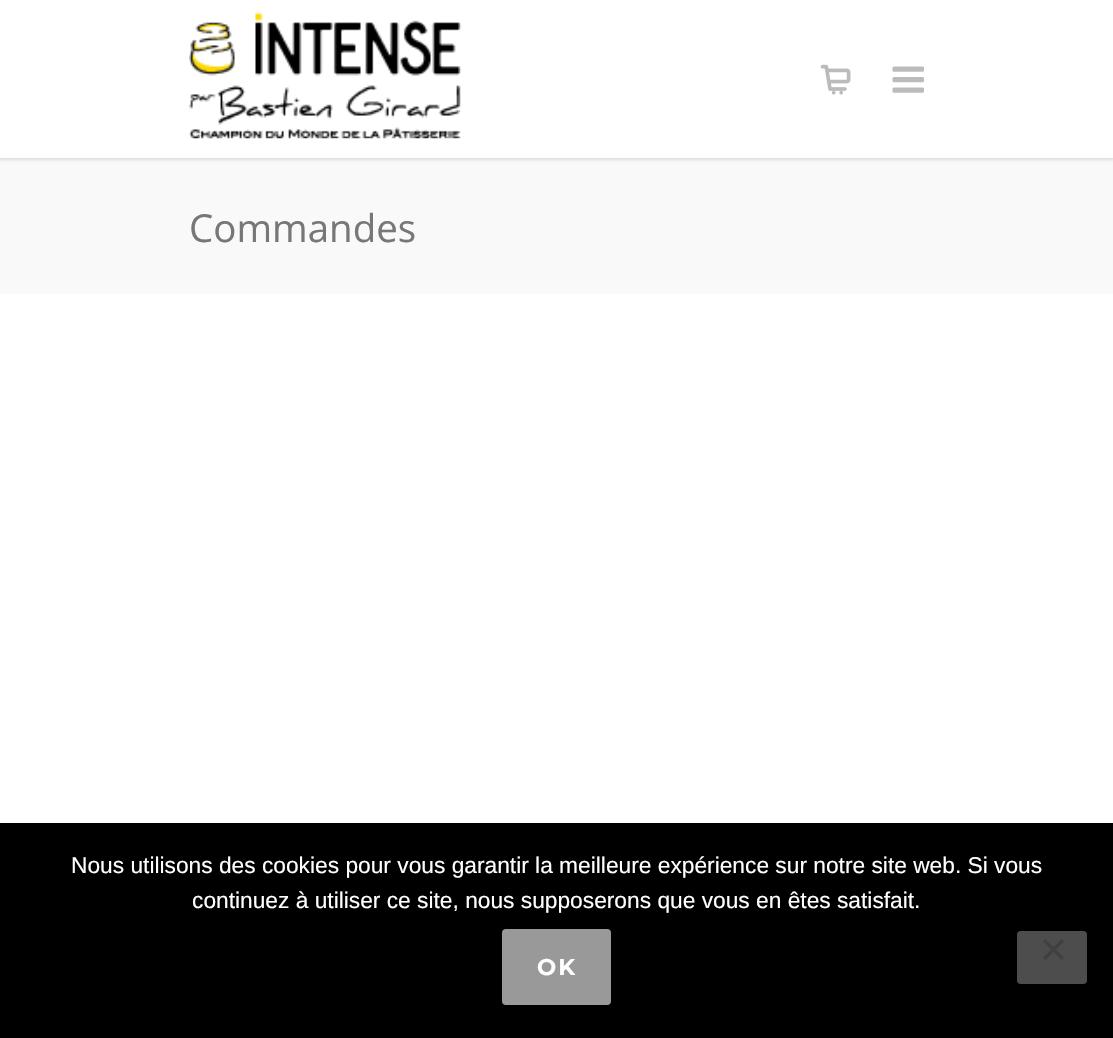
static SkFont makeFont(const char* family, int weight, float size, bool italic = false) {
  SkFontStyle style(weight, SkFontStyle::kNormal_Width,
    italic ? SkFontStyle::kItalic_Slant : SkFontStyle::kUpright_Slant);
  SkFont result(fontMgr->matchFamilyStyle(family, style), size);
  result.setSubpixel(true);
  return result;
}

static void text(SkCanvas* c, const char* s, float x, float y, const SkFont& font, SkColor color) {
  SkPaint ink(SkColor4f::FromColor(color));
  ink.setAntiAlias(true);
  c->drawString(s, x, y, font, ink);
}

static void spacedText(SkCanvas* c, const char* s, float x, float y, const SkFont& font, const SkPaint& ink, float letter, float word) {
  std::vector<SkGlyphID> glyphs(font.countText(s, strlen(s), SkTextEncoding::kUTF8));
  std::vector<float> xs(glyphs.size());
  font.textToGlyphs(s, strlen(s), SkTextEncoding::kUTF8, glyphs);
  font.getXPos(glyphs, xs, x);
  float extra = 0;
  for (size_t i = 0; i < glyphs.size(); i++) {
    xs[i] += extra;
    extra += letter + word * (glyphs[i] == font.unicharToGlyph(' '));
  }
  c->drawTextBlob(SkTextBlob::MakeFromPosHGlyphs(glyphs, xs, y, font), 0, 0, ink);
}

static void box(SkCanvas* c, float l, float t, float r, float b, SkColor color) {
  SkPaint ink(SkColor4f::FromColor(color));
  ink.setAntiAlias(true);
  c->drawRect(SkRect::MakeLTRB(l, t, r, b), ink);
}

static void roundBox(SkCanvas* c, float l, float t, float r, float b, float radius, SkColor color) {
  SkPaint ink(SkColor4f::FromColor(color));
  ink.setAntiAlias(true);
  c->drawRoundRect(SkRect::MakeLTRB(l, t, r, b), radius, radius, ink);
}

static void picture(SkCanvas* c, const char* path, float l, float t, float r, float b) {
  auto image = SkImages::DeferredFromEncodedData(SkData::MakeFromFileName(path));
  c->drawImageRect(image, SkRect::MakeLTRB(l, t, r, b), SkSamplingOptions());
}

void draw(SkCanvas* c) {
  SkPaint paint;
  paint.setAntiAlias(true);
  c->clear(0xffffffff);
  box(c, 0, 158, 1113, 294, 0xfff9f9f9);
  paint.setColor(0x29000000);
  paint.setMaskFilter(SkMaskFilter::MakeBlur(kNormal_SkBlurStyle, 2));
  c->drawRect(SkRect::MakeLTRB(-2, -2, 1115, 159), paint);
  paint.setMaskFilter(nullptr);
  box(c, 0, 0, 1113, 158, 0xffffffff);
  picture(c, "img_01.png", 189, 12, 461, 139);
  picture(c, "img_02.png", 820, 64, 851, 95);
  picture(c, "img_03.png", 892, 66, 924, 93);
  SkFont face1 = makeFont("Open Sans", 400, 38.5f);
  text(c, "Commandes", 189, 242, face1, 0xff777777);
  box(c, 0, 823, 1113, 1038, 0xff000000);
  SkFont face2 = makeFont("Liberation Sans", 400, 22.75f);
  text(c, "Nous utilisons des cookies pour vous garantir la meilleure expérience sur notre site web. Si vous", 71, 873, face2, 0xffffffff);
  text(c, "continuez à utiliser ce site, nous supposerons que vous en êtes satisfait.", 192, 908, face2, 0xffffffff);
  roundBox(c, 502, 929, 611, 1005, 4, 0xff999999);
  SkFont face3 = makeFont("Montserrat", 700, 22.75f);
  paint.setColor(0xffffffff);
  spacedText(c, "OK", 537, 975, face3, paint, 2, 0);
  roundBox(c, 1017, 931, 1087, 984, 4, 0xff4d4d4d);
  paint.setColor(0xff404040);
  c->drawPath(SkPathBuilder().moveTo(1061.5f, 939).lineTo(1064, 941.5f).lineTo(1045.5f, 960).lineTo(1043, 957.5f).close().detach(), paint);
  c->drawPath(SkPathBuilder().moveTo(1043, 941.5f).lineTo(1045.5f, 939).lineTo(1064, 957.5f).lineTo(1061.5f, 960).close().detach(), paint);
}
